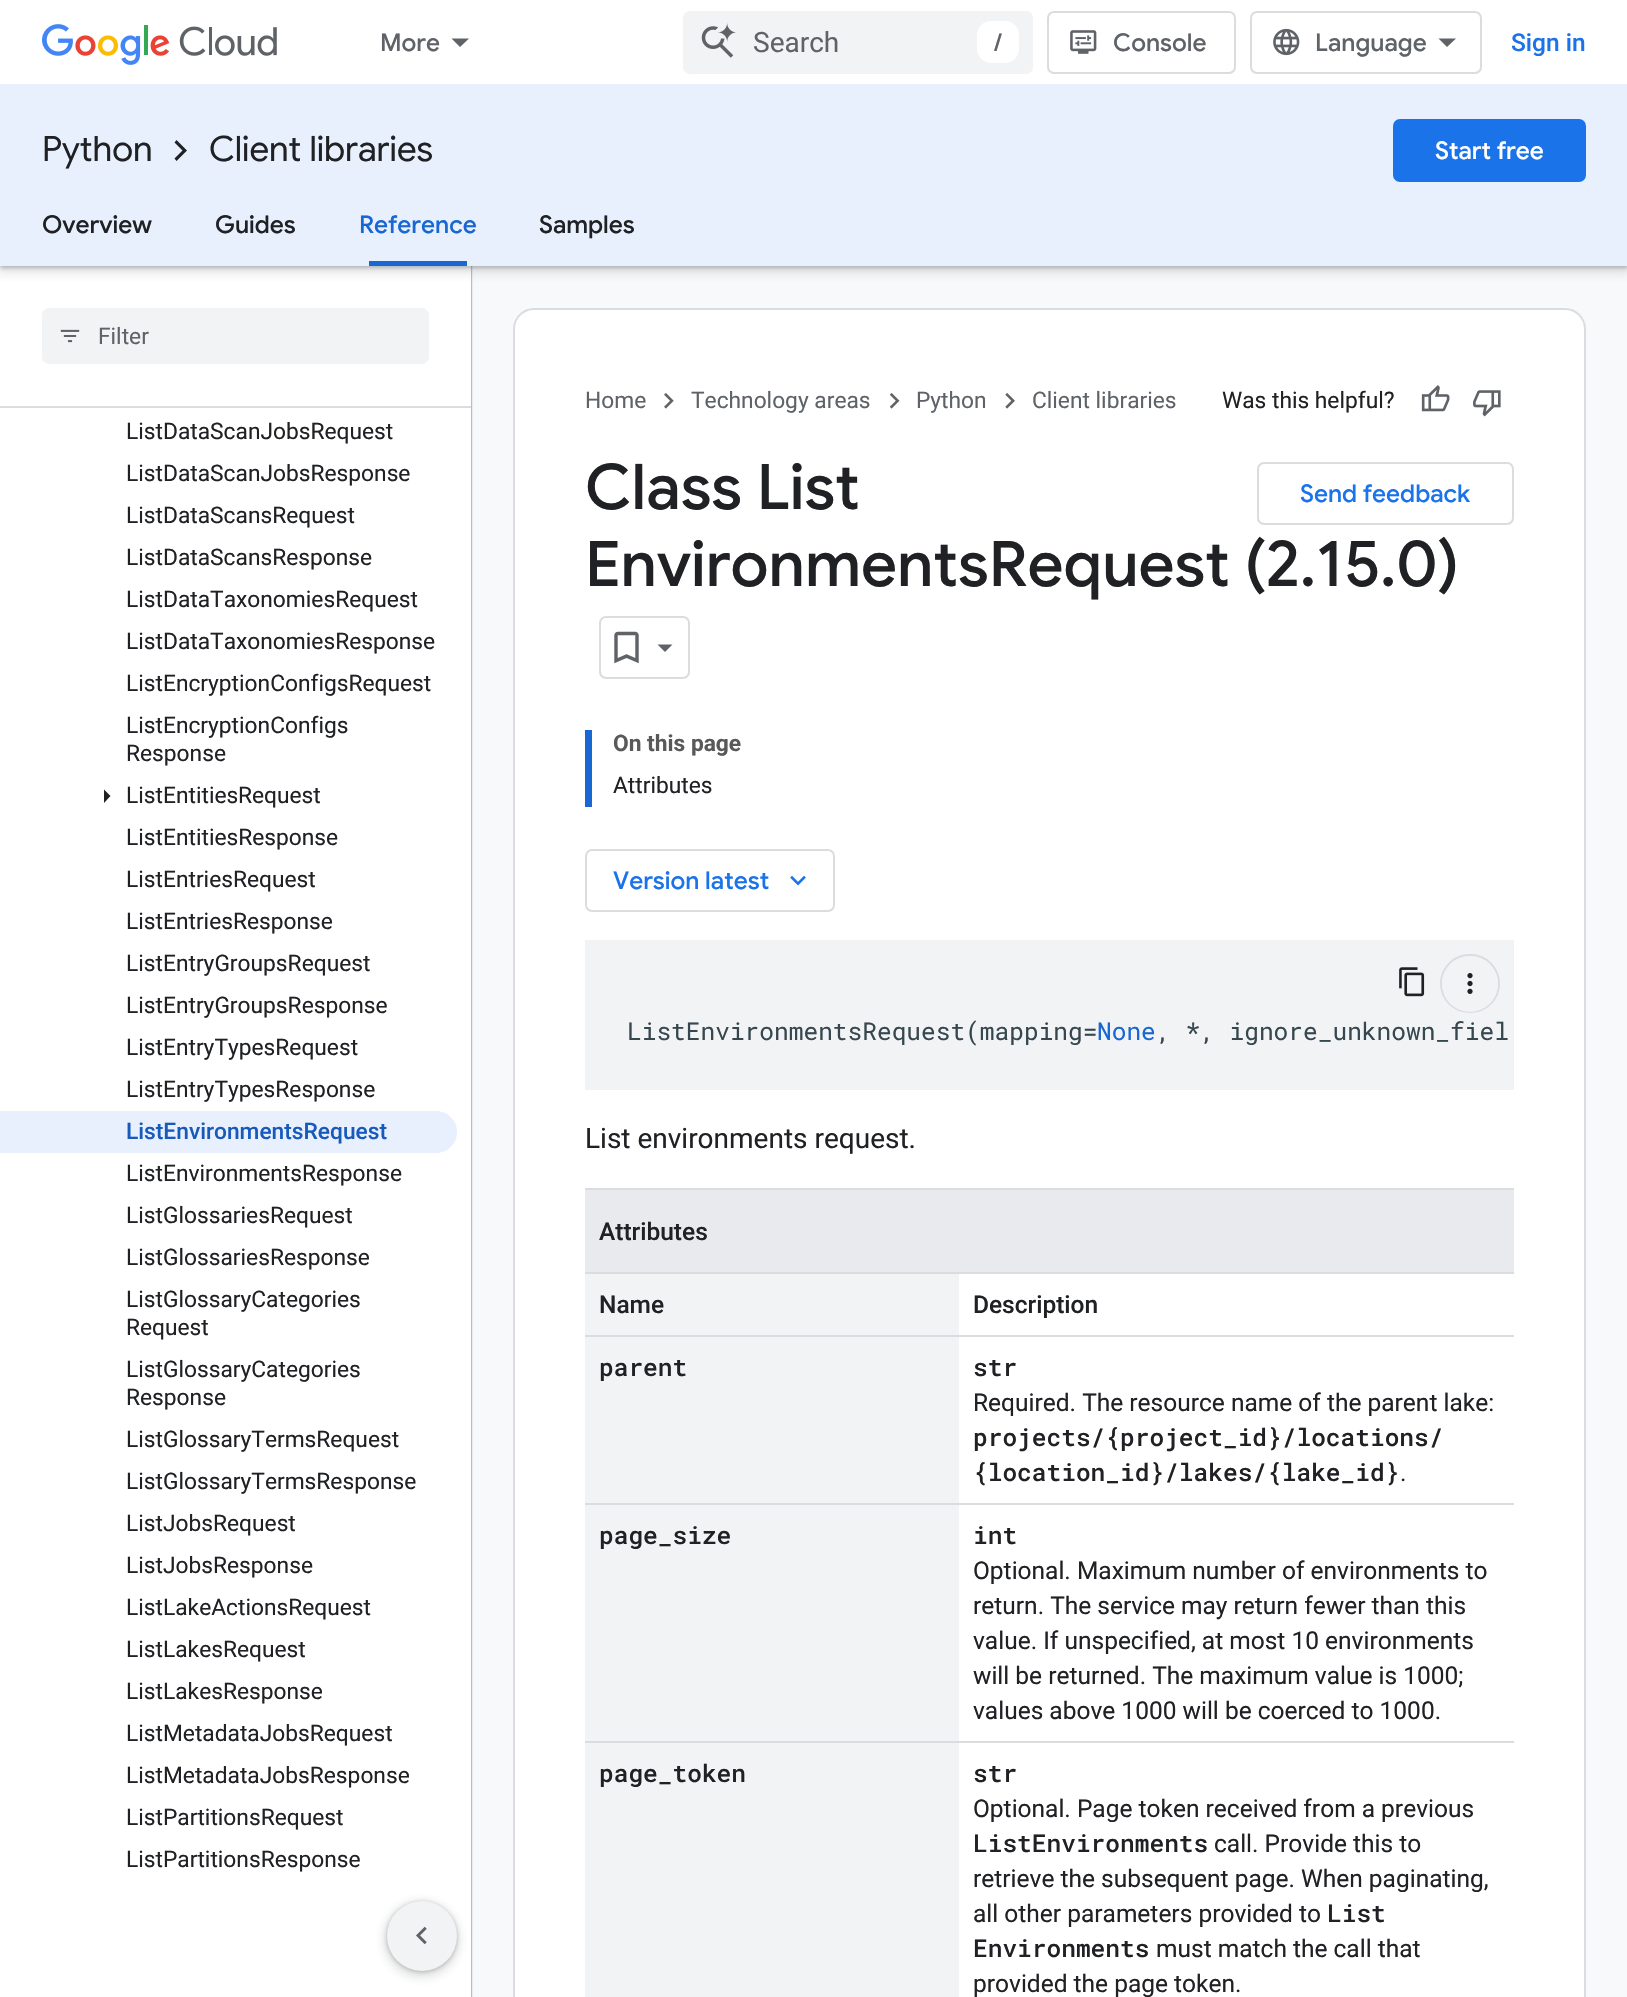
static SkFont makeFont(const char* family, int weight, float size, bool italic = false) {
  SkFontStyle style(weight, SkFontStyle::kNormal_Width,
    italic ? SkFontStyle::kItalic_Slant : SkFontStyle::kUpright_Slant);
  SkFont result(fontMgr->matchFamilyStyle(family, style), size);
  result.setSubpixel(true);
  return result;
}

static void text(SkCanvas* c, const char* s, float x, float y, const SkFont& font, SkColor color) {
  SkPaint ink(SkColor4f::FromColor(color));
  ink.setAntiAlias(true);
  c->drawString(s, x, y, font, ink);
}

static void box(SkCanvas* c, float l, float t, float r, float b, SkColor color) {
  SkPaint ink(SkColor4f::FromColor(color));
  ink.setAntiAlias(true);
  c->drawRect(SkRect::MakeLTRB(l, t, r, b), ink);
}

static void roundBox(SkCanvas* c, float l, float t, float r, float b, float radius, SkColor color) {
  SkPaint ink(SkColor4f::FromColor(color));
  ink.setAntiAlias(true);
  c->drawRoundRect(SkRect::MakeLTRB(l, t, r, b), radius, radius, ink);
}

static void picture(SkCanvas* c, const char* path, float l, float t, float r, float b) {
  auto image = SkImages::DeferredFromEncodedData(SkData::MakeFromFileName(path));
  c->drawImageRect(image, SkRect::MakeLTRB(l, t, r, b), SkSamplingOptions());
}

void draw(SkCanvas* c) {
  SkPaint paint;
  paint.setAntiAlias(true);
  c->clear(0xfff8f9fa);
  paint.setColor(0xff3c4043);
  paint.setMaskFilter(SkMaskFilter::MakeBlur(kNormal_SkBlurStyle, 1));
  c->drawRect(SkRect::MakeLTRB(0, 2, 471, 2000), paint);
  paint.setMaskFilter(nullptr);
  box(c, 0, 408, 471, 1997, 0xffffffff);
  box(c, 0, 266, 471, 406, 0xffffffff);
  paint.setColor(0x263c4043);
  paint.setMaskFilter(SkMaskFilter::MakeBlur(kNormal_SkBlurStyle, 5));
  c->drawRect(SkRect::MakeLTRB(-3, 84, 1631, 273), paint);
  paint.setMaskFilter(nullptr);
  paint.setColor(0x4d3c4043);
  paint.setMaskFilter(SkMaskFilter::MakeBlur(kNormal_SkBlurStyle, 2));
  c->drawRect(SkRect::MakeLTRB(0, 86, 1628, 268), paint);
  paint.setMaskFilter(nullptr);
  box(c, 0, 0, 1627, 84, 0xffffffff);
  picture(c, "img_01.png", 42, 24, 277, 65);
  SkFont face1 = makeFont("Google Sans", 500, 24.5f);
  text(c, "More", 380, 51, face1, 0xff5f6368);
  paint.setColor(0xff5f6368);
  c->drawPath(SkPathBuilder().moveTo(451.5f, 38.5f).lineTo(469, 38.5f).lineTo(460, 47).close().detach(), paint);
  roundBox(c, 683, 11, 1033, 74, 7, 0xfff1f3f4);
  picture(c, "img_02.png", 701, 23, 737, 58);
  SkFont face2 = makeFont("Roboto", 400, 28);
  text(c, "Search", 753, 52, face2, 0xff5f6368);
  roundBox(c, 977, 21, 1019, 63, 14, 0xffffffff);
  text(c, "/", 994, 51, face1, 0xff5f6368);
  paint.setStyle(SkPaint::kStroke_Style);
  paint.setStrokeWidth(2);
  paint.setColor(0xffdadce0);
  c->drawRoundRect(SkRect::MakeLTRB(1048, 12, 1235, 73), 6, 6, paint);
  picture(c, "img_03.png", 1070, 30, 1097, 54);
  text(c, "Console", 1113, 51, face1, 0xff5f6368);
  c->drawRoundRect(SkRect::MakeLTRB(1251, 12, 1481, 73), 6, 6, paint);
  picture(c, "img_04.png", 1273, 28, 1300, 56);
  text(c, "Language", 1315, 51, face1, 0xff5f6368);
  paint.setStyle(SkPaint::kFill_Style);
  paint.setColor(0xff5f6368);
  c->drawPath(SkPathBuilder().moveTo(1447, 47).lineTo(1438.5f, 38.5f).lineTo(1456, 38.5f).close().detach(), paint);
  SkFont face3 = makeFont("Roboto", 500, 24.5f);
  text(c, "Sign in", 1511, 51, face3, 0xff1a73e8);
  box(c, 0, 84, 1627, 266, 0xffe8f0fe);
  SkFont face4 = makeFont("Google Sans", 400, 35);
  text(c, "Python", 42, 161, face4, 0xff202124);
  paint.setColor(0xff202124);
  c->drawPath(SkPathBuilder().moveTo(176.5f, 140).lineTo(187, 150.5f).lineTo(176.5f, 161).lineTo(174.5f, 158.5f).lineTo(182.5f, 150.5f).lineTo(174.5f, 142.5f).close().detach(), paint);
  text(c, "Client libraries", 209, 161, face4, 0xff202124);
  roundBox(c, 1393, 119, 1586, 182, 7, 0xff1a73e8);
  text(c, "Start free", 1435, 159, face1, 0xffffffff);
  text(c, "Overview", 42, 233, face1, 0xff202124);
  text(c, "Guides", 215, 233, face1, 0xff202124);
  text(c, "Reference", 359, 233, face1, 0xff1967d2);
  box(c, 369, 261, 467, 266, 0xff1967d2);
  text(c, "Samples", 539, 233, face1, 0xff202124);
  box(c, 0, 406, 471, 408, 0xffdadce0);
  roundBox(c, 42, 308, 429, 364, 7, 0xfff1f3f4);
  picture(c, "img_05.png", 60, 329, 80, 343);
  SkFont face5 = makeFont("Roboto", 400, 22.75f);
  text(c, "Filter", 98, 344, face5, 0xff5f6368);
  text(c, "ListDataScanJobsRequest", 126, 439, face5, 0xff202124);
  text(c, "ListDataScanJobsResponse", 126, 481, face5, 0xff202124);
  text(c, "ListDataScansRequest", 126, 523, face5, 0xff202124);
  text(c, "ListDataScansResponse", 126, 565, face5, 0xff202124);
  text(c, "ListDataTaxonomiesRequest", 126, 607, face5, 0xff202124);
  text(c, "ListDataTaxonomiesResponse", 126, 649, face5, 0xff202124);
  text(c, "ListEncryptionConfigsRequest", 126, 691, face5, 0xff202124);
  text(c, "ListEncryptionConfigs", 126, 733, face5, 0xff202124);
  text(c, "Response", 126, 761, face5, 0xff202124);
  c->drawPath(SkPathBuilder().moveTo(104, 803).lineTo(104, 789.5f).lineTo(110.5f, 796).close().detach(), paint);
  text(c, "ListEntities", 126, 803, face5, 0xff202124);
  c->save();
  c->clipRect(SkRect::MakeLTRB(126, 266, 320, 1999));
  text(c, "Request", 238, 803, face5, 0xff202124);
  c->restore();
  text(c, "ListEntitiesResponse", 126, 845, face5, 0xff202124);
  text(c, "ListEntriesRequest", 126, 887, face5, 0xff202124);
  text(c, "ListEntriesResponse", 126, 929, face5, 0xff202124);
  text(c, "ListEntryGroupsRequest", 126, 971, face5, 0xff202124);
  text(c, "ListEntryGroupsResponse", 126, 1013, face5, 0xff202124);
  text(c, "ListEntryTypesRequest", 126, 1055, face5, 0xff202124);
  text(c, "ListEntryTypesResponse", 126, 1097, face5, 0xff202124);
  paint.setColor(0xffe8f0fe);
  c->drawPath(SkPathBuilder().moveTo(0, 1111).lineTo(436, 1111).cubicTo(447.5f, 1111, 457, 1120.5f, 457, 1132).cubicTo(457, 1143.5f, 447.5f, 1153, 436, 1153).lineTo(0, 1153).close().detach(), paint);
  SkFont face6 = makeFont("Roboto", 500, 22.75f);
  text(c, "ListEnvironmentsRequest", 126, 1139, face6, 0xff185abc);
  text(c, "ListEnvironmentsResponse", 126, 1181, face5, 0xff202124);
  text(c, "ListGlossariesRequest", 126, 1223, face5, 0xff202124);
  text(c, "ListGlossariesResponse", 126, 1265, face5, 0xff202124);
  text(c, "ListGlossaryCategories", 126, 1307, face5, 0xff202124);
  text(c, "Request", 126, 1335, face5, 0xff202124);
  text(c, "ListGlossaryCategories", 126, 1377, face5, 0xff202124);
  text(c, "Response", 126, 1405, face5, 0xff202124);
  text(c, "ListGlossaryTermsRequest", 126, 1447, face5, 0xff202124);
  text(c, "ListGlossaryTermsResponse", 126, 1489, face5, 0xff202124);
  text(c, "ListJobsRequest", 126, 1531, face5, 0xff202124);
  text(c, "ListJobsResponse", 126, 1573, face5, 0xff202124);
  text(c, "ListLakeActionsRequest", 126, 1615, face5, 0xff202124);
  text(c, "ListLakesRequest", 126, 1657, face5, 0xff202124);
  text(c, "ListLakesResponse", 126, 1699, face5, 0xff202124);
  text(c, "ListMetadataJobsRequest", 126, 1741, face5, 0xff202124);
  text(c, "ListMetadataJobsResponse", 126, 1783, face5, 0xff202124);
  text(c, "ListPartitionsRequest", 126, 1825, face5, 0xff202124);
  text(c, "ListPartitionsResponse", 126, 1867, face5, 0xff202124);
  paint.setColor(0xffffffff);
  c->drawRoundRect(SkRect::MakeLTRB(514, 309, 1585, 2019), 20, 20, paint);
  paint.setStyle(SkPaint::kStroke_Style);
  paint.setColor(0xffdadce0);
  c->drawRoundRect(SkRect::MakeLTRB(514, 309, 1585, 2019), 20, 20, paint);
  text(c, "Home", 585, 408, face5, 0xff5f6368);
  picture(c, "img_06.png", 664, 393, 674, 409);
  text(c, "Technology areas", 691, 408, face5, 0xff5f6368);
  picture(c, "img_07.png", 889, 393, 900, 409);
  text(c, "Python", 916, 408, face5, 0xff5f6368);
  picture(c, "img_08.png", 1005, 393, 1015, 409);
  text(c, "Client libraries", 1032, 408, face5, 0xff5f6368);
  text(c, "Was this helpful?", 1222, 408, face5, 0xff202124);
  picture(c, "img_09.png", 1421, 385, 1450, 412);
  picture(c, "img_10.png", 1473, 390, 1501, 417);
  SkFont face7 = makeFont("Google Sans", 500, 63);
  text(c, "Class List", 585, 509, face7, 0xff202124);
  text(c, "EnvironmentsRequest (2.15.0)", 585, 586, face7, 0xff202124);
  c->drawRoundRect(SkRect::MakeLTRB(600, 617, 689, 678), 6, 6, paint);
  picture(c, "img_11.png", 614, 631, 639, 664);
  paint.setStyle(SkPaint::kFill_Style);
  paint.setColor(0xff5f6368);
  c->drawPath(SkPathBuilder().moveTo(657.5f, 644.5f).lineTo(672.5f, 644.5f).lineTo(665, 652).close().detach(), paint);
  paint.setStyle(SkPaint::kStroke_Style);
  paint.setColor(0xffdadce0);
  c->drawRoundRect(SkRect::MakeLTRB(1258, 463, 1513, 524), 6, 6, paint);
  text(c, "Send feedback", 1300, 502, face1, 0xff1a73e8);
  box(c, 585, 730, 592, 807, 0xff1967d2);
  SkFont face8 = makeFont("Roboto", 700, 22.75f);
  text(c, "On this page", 613, 751, face8, 0xff595959);
  text(c, "Attributes", 613, 793, face5, 0xff202124);
  c->drawRoundRect(SkRect::MakeLTRB(586, 850, 834, 911), 6, 6, paint);
  text(c, "Version latest", 613, 889, face1, 0xff1a73e8);
  picture(c, "img_12.png", 790, 875, 806, 886);
  box(c, 585, 940, 1514, 1090, 0xfff1f3f4);
  picture(c, "img_13.png", 1399, 967, 1425, 997);
  c->drawRoundRect(SkRect::MakeLTRB(1441, 955, 1499, 1012), 28.5f, 28.5f, paint);
  paint.setStyle(SkPaint::kFill_Style);
  paint.setColor(0xfff1f3f4);
  c->drawCircle(1470, 984, 28, paint);
  picture(c, "img_14.png", 1467, 973, 1473, 994);
  SkFont face9 = makeFont("Roboto Mono", 400, 24.5f);
  text(c, "ListEnvironmentsRequest(mapping=", 627, 1040, face9, 0xff37474f);
  text(c, "None", 1097, 1040, face9, 0xff1967d2);
  text(c, ", *, ignore_unknown_fiel", 1156, 1040, face9, 0xff37474f);
  text(c, "List environments request.", 585, 1148, face2, 0xff202124);
  box(c, 585, 1188, 1514, 1190, 0xffdadce0);
  box(c, 585, 1272, 1514, 1274, 0xffdadce0);
  box(c, 585, 1190, 1514, 1272, 0xffe8eaed);
  text(c, "Attributes", 599, 1240, face3, 0xff202124);
  box(c, 585, 1335, 1514, 1337, 0xffdadce0);
  box(c, 585, 1274, 959, 1335, 0xfff1f3f4);
  text(c, "Name", 599, 1313, face3, 0xff202124);
  text(c, "Description", 973, 1313, face3, 0xff202124);
  box(c, 585, 1503, 1514, 1505, 0xffdadce0);
  box(c, 585, 1337, 959, 1503, 0xfff1f3f4);
  SkFont face10 = makeFont("Roboto Mono", 500, 24.5f);
  text(c, "parent", 599, 1376, face10, 0xff202124);
  text(c, "str", 973, 1376, face10, 0xff202124);
  SkFont face11 = makeFont("Roboto", 400, 24.5f);
  text(c, "Required. The resource name of the parent lake:", 973, 1411, face11, 0xff202124);
  text(c, "projects/{project_id}/locations/", 973, 1446, face10, 0xff202124);
  text(c, "{location_id}/lakes/{lake_id}", 973, 1481, face10, 0xff202124);
  text(c, ".", 1400, 1481, face11, 0xff202124);
  box(c, 585, 1741, 1514, 1743, 0xffdadce0);
  box(c, 585, 1505, 959, 1741, 0xfff1f3f4);
  text(c, "page_size", 599, 1544, face10, 0xff202124);
  text(c, "int", 973, 1544, face10, 0xff202124);
  text(c, "Optional. Maximum number of environments to", 973, 1579, face11, 0xff202124);
  text(c, "return. The service may return fewer than this", 973, 1614, face11, 0xff202124);
  text(c, "value. If unspecified, at most 10 environments", 973, 1649, face11, 0xff202124);
  text(c, "will be returned. The maximum value is 1000;", 973, 1684, face11, 0xff202124);
  text(c, "values above 1000 will be coerced to 1000.", 973, 1719, face11, 0xff202124);
  box(c, 585, 1743, 959, 1997, 0xfff1f3f4);
  text(c, "page_token", 599, 1782, face10, 0xff202124);
  text(c, "str", 973, 1782, face10, 0xff202124);
  text(c, "Optional. Page token received from a previous", 973, 1817, face11, 0xff202124);
  text(c, "ListEnvironments", 973, 1852, face10, 0xff202124);
  text(c, "call. Provide this to", 1214, 1852, face11, 0xff202124);
  text(c, "retrieve the subsequent page. When paginating,", 973, 1887, face11, 0xff202124);
  text(c, "all other parameters provided to", 973, 1922, face11, 0xff202124);
  text(c, "List", 1327, 1922, face10, 0xff202124);
  text(c, "Environments", 973, 1957, face10, 0xff202124);
  text(c, "must match the call that", 1156, 1957, face11, 0xff202124);
  text(c, "provided the page token.", 973, 1992, face11, 0xff202124);
  paint.setColor(0x263c4043);
  paint.setMaskFilter(SkMaskFilter::MakeBlur(kNormal_SkBlurStyle, 5));
  c->drawRoundRect(SkRect::MakeLTRB(383, 1901, 460, 1978), 38.5f, 38.5f, paint);
  paint.setMaskFilter(nullptr);
  paint.setColor(0x4d3c4043);
  paint.setMaskFilter(SkMaskFilter::MakeBlur(kNormal_SkBlurStyle, 2));
  c->drawRoundRect(SkRect::MakeLTRB(387, 1902, 457, 1972), 35, 35, paint);
  paint.setMaskFilter(nullptr);
  paint.setColor(0xfff1f3f4);
  c->drawCircle(422, 1936, 35, paint);
  picture(c, "img_15.png", 416, 1926, 427, 1945);
}
